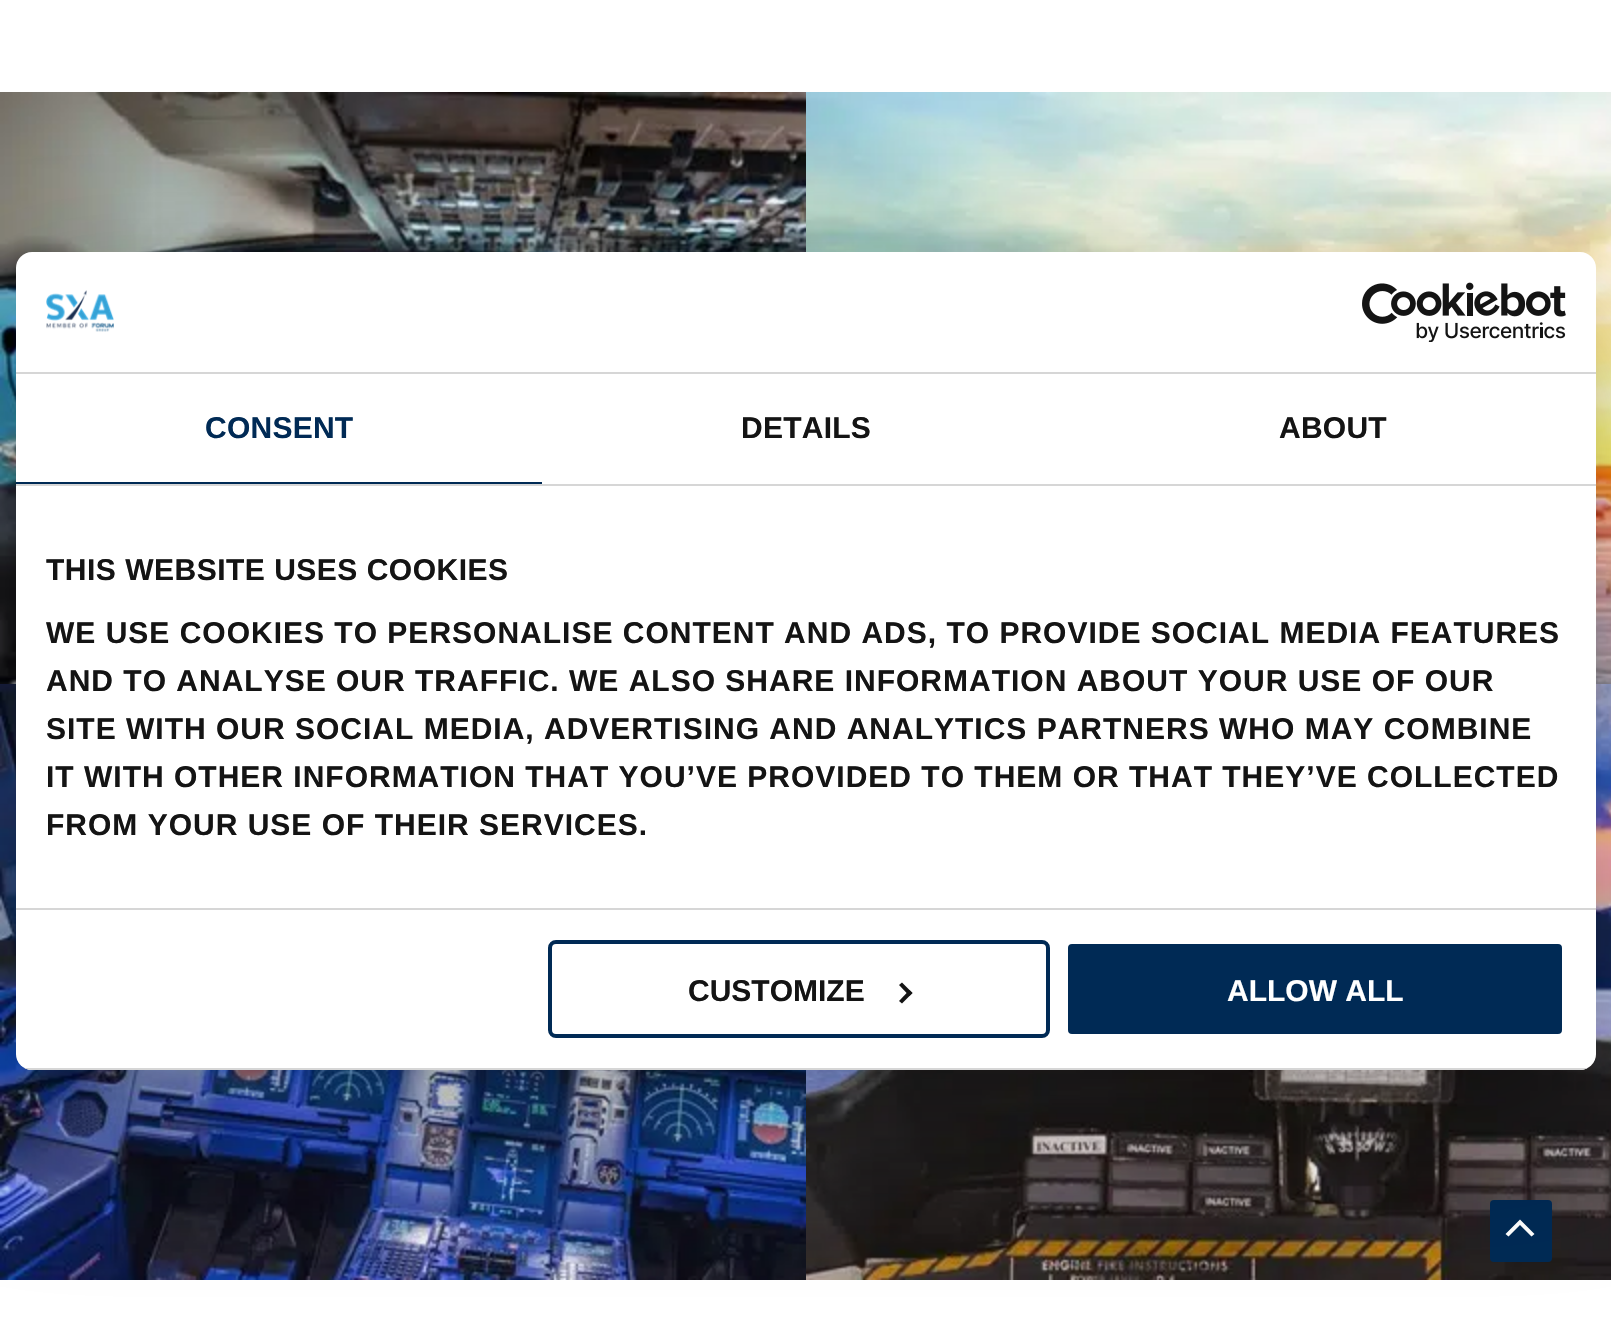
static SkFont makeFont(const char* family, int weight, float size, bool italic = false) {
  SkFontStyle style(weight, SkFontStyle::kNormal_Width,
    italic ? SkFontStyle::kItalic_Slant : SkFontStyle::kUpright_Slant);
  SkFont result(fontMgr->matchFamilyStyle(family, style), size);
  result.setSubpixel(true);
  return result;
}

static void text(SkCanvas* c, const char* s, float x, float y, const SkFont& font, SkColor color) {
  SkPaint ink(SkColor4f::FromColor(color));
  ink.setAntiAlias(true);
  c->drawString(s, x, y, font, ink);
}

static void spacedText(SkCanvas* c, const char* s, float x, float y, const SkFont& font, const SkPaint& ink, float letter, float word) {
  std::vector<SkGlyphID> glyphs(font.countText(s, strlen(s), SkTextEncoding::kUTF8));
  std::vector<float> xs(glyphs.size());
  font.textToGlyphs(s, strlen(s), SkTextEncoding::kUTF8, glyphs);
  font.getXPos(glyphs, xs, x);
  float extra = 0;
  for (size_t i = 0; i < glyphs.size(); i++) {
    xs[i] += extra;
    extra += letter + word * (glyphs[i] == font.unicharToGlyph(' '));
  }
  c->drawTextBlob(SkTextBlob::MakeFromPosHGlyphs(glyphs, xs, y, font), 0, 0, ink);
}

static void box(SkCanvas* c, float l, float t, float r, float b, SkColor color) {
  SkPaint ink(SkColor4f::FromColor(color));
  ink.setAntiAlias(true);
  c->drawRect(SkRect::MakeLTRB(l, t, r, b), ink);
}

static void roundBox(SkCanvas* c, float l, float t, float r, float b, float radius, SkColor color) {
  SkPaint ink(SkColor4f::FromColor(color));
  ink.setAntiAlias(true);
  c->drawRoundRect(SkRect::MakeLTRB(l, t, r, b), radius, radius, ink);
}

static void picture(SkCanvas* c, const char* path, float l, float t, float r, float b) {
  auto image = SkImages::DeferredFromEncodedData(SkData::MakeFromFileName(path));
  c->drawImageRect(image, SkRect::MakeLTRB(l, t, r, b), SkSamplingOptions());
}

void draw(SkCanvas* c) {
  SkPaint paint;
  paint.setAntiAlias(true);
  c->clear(0xffffffff);
  picture(c, "img_01.png", 0, 92, 806, 684);
  picture(c, "img_02.png", 806, 92, 1611, 684);
  picture(c, "img_03.png", 0, 684, 806, 1280);
  picture(c, "img_04.png", 806, 684, 1611, 1280);
  roundBox(c, 1490, 1200, 1552, 1262, 4, 0xff002a55);
  paint.setColor(0xffffffff);
  c->drawPath(SkPathBuilder().moveTo(1534.5f, 1234).lineTo(1520, 1219.5f).lineTo(1505.5f, 1234).lineTo(1508.5f, 1236.5f).lineTo(1520, 1225).lineTo(1531.5f, 1236.5f).close().detach(), paint);
  paint.setColor(0x4d000000);
  paint.setMaskFilter(SkMaskFilter::MakeBlur(kNormal_SkBlurStyle, 68));
  c->drawRoundRect(SkRect::MakeLTRB(16, 316, 1596, 1134), 16, 16, paint);
  paint.setMaskFilter(nullptr);
  roundBox(c, 16, 252, 1596, 1070, 16, 0xffffffff);
  box(c, 16, 372, 1596, 374, 0xffd6d6d6);
  picture(c, "img_05.png", 46, 290, 114, 332);
  picture(c, "img_06.png", 1362, 282, 1566, 342);
  box(c, 16, 484, 1596, 486, 0xffd6d6d6);
  box(c, 16, 482, 542, 484, 0xff002a55);
  SkFont face1 = makeFont("Liberation Sans", 700, 30);
  paint.setColor(0xff002a55);
  spacedText(c, "CONSENT", 205, 438, face1, paint, 0.25f, 0);
  paint.setColor(0xff141414);
  spacedText(c, "DETAILS", 741, 438, face1, paint, 0.25f, 0);
  spacedText(c, "ABOUT", 1279, 438, face1, paint, 0.25f, 0);
  box(c, 16, 908, 1596, 910, 0xffd6d6d6);
  spacedText(c, "THIS WEBSITE USES COOKIES", 46, 580, face1, paint, 0.5f, 0);
  spacedText(c, "WE USE COOKIES TO PERSONALISE CONTENT AND ADS, TO PROVIDE SOCIAL MEDIA FEATURES", 46, 643, face1, paint, 1, 0);
  spacedText(c, "AND TO ANALYSE OUR TRAFFIC. WE ALSO SHARE INFORMATION ABOUT YOUR USE OF OUR", 46, 691, face1, paint, 1, 0);
  spacedText(c, "SITE WITH OUR SOCIAL MEDIA, ADVERTISING AND ANALYTICS PARTNERS WHO MAY COMBINE", 46, 739, face1, paint, 1, 0);
  spacedText(c, "IT WITH OTHER INFORMATION THAT YOU’VE PROVIDED TO THEM OR THAT THEY’VE COLLECTED", 46, 787, face1, paint, 1, 0);
  spacedText(c, "FROM YOUR USE OF THEIR SERVICES.", 46, 835, face1, paint, 1, 0);
  c->save();
  c->clipPath(SkPathBuilder().moveTo(32, 252).lineTo(1580, 252).cubicTo(1589, 252, 1596, 259, 1596, 268).lineTo(1596, 1054).cubicTo(1596, 1063, 1589, 1070, 1580, 1070).lineTo(32, 1070).cubicTo(23, 1070, 16, 1063, 16, 1054).lineTo(16, 268).cubicTo(16, 259, 23, 252, 32, 252).close().detach(), true);
  box(c, 16, 1068, 1596, 1070, 0xffd6d6d6);
  c->restore();
  paint.setStyle(SkPaint::kStroke_Style);
  paint.setStrokeWidth(4);
  paint.setColor(0xff002a55);
  c->drawRoundRect(SkRect::MakeLTRB(550, 942, 1048, 1036), 6, 6, paint);
  text(c, "CUSTOMIZE", 688, 1001, face1, 0xff141414);
  paint.setStyle(SkPaint::kFill_Style);
  paint.setColor(0xff141414);
  c->drawPath(SkPathBuilder().moveTo(902, 982.5f).lineTo(912.5f, 993).lineTo(909.5f, 996).lineTo(899, 985).close().detach(), paint);
  c->drawPath(SkPathBuilder().moveTo(909.5f, 990).lineTo(912.5f, 993).lineTo(902, 1003.5f).lineTo(899, 1001).close().detach(), paint);
  paint.setColor(0xff002a55);
  c->drawRoundRect(SkRect::MakeLTRB(1066, 942, 1564, 1036), 6, 6, paint);
  paint.setStyle(SkPaint::kStroke_Style);
  paint.setColor(0xffffffff);
  c->drawRoundRect(SkRect::MakeLTRB(1066, 942, 1564, 1036), 6, 6, paint);
  text(c, "ALLOW ALL", 1227, 1001, face1, 0xffffffff);
}
